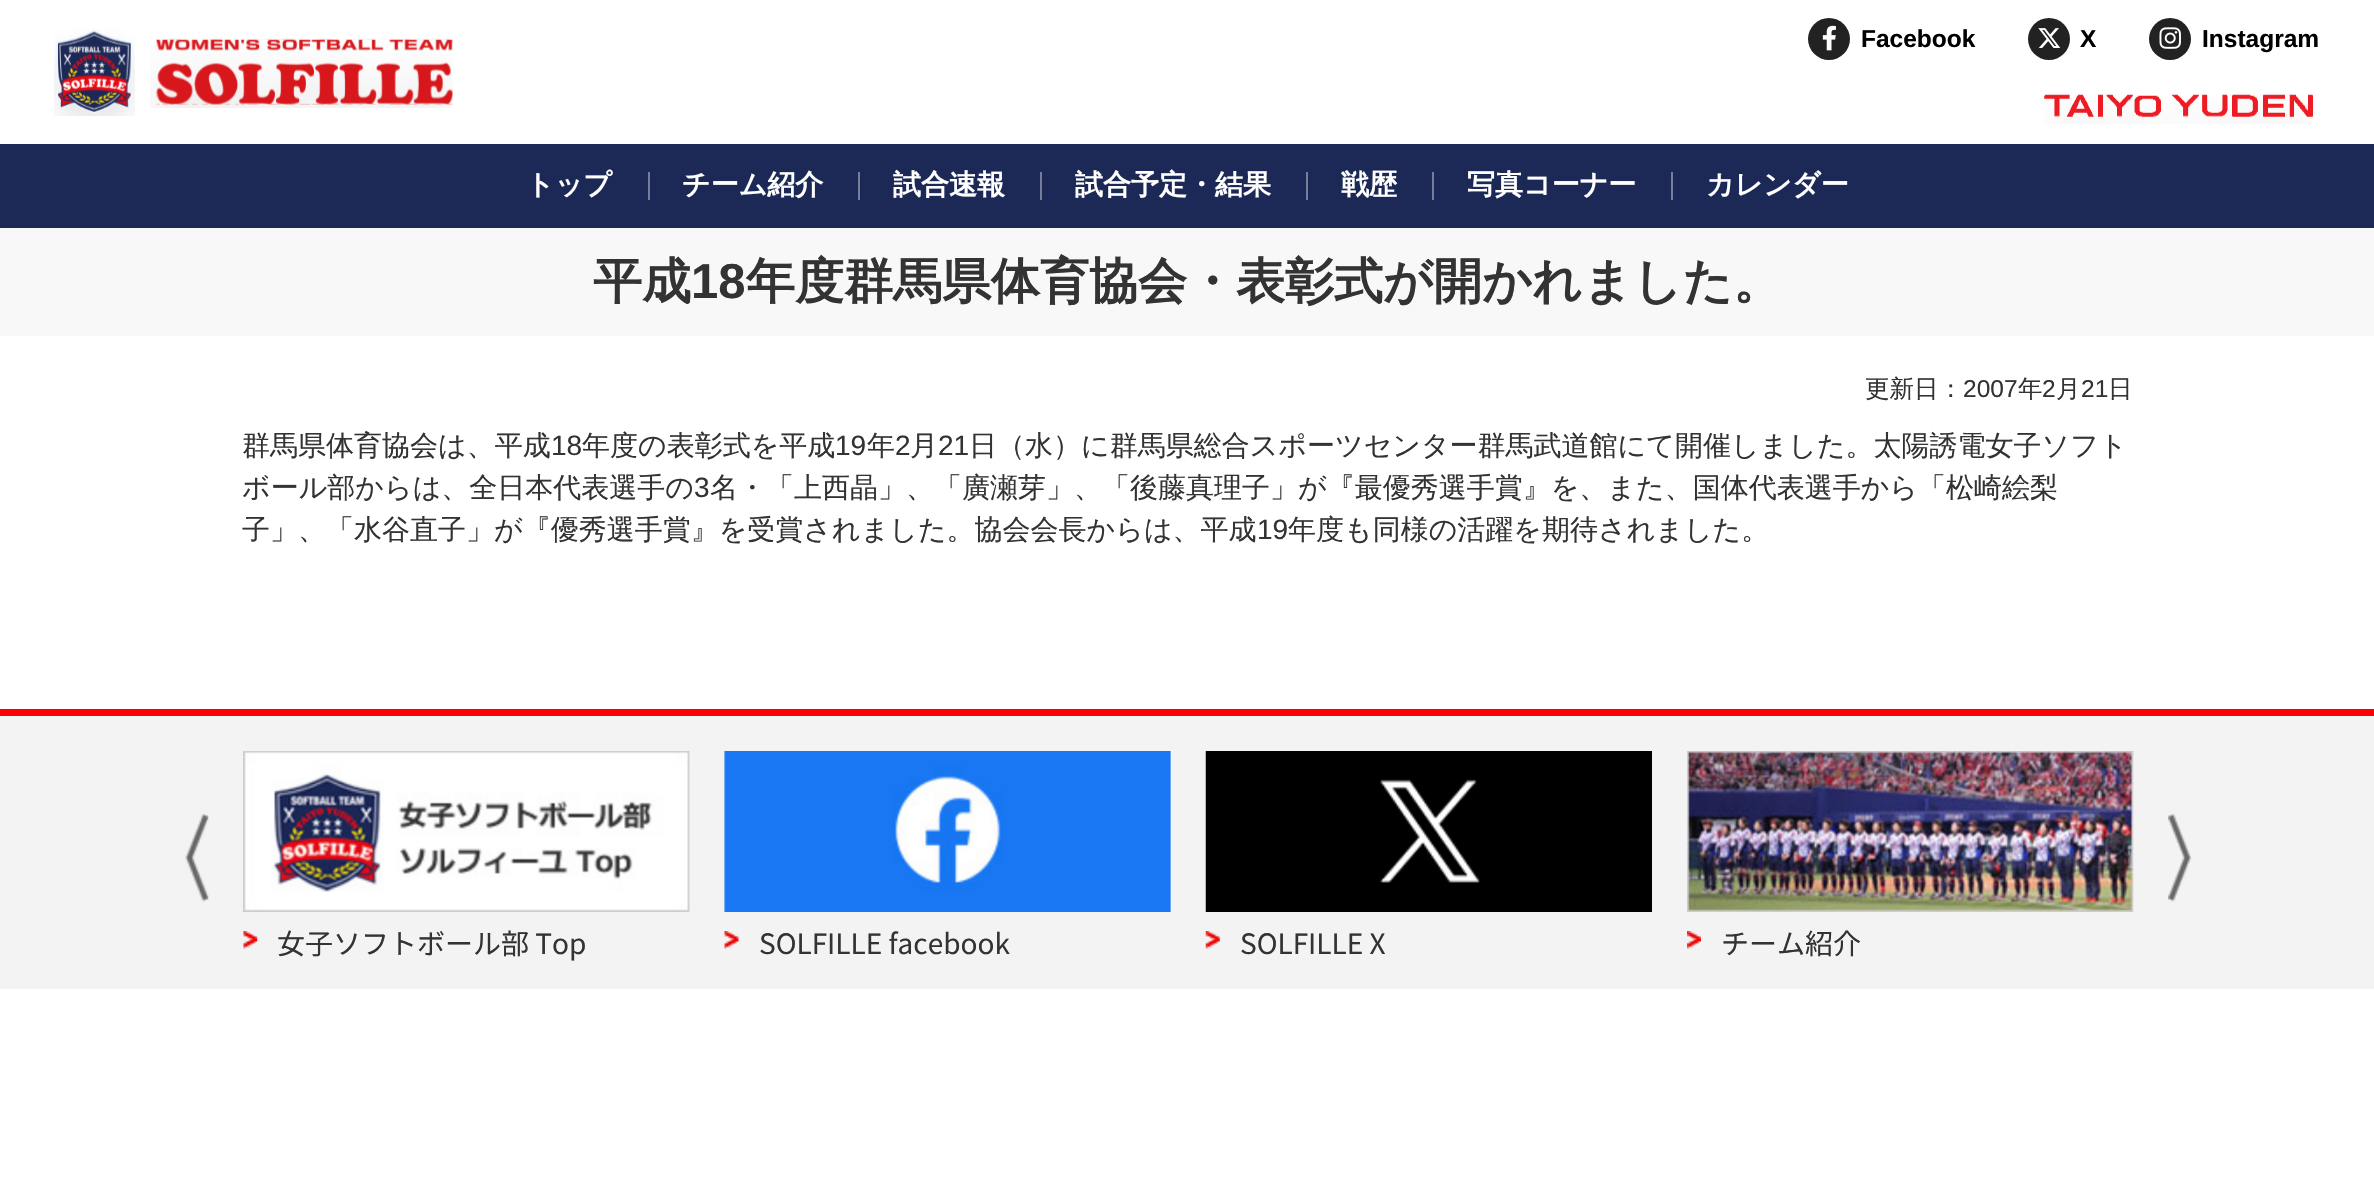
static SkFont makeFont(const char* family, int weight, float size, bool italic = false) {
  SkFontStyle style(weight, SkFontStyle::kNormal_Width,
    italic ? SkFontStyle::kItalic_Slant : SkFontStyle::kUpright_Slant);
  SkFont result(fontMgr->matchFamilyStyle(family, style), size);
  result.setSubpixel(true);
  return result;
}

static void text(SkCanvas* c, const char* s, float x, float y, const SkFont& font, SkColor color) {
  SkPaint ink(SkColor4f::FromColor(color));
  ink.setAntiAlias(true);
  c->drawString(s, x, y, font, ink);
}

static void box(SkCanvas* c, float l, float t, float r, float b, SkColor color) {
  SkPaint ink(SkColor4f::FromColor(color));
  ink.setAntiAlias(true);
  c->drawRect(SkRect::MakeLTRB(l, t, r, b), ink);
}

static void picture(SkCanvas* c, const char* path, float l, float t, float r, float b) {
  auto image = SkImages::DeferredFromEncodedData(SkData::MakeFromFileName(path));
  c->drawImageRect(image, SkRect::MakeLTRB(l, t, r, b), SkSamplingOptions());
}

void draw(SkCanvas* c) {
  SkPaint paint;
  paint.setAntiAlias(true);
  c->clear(0xffffffff);
  picture(c, "img_01.png", 54, 29, 135, 116);
  picture(c, "img_02.png", 150, 38, 453, 108);
  paint.setColor(0xff222222);
  c->drawCircle(1829, 39, 21, paint);
  picture(c, "img_03.png", 1822, 25, 1836, 51);
  SkFont face1 = makeFont("Liberation Sans", 700, 24.5f);
  text(c, "Facebook", 1861, 47, face1, 0xff000000);
  c->drawCircle(2049, 39, 21, paint);
  picture(c, "img_04.png", 2038, 28, 2061, 48);
  text(c, "X", 2080, 47, face1, 0xff000000);
  c->drawCircle(2170, 39, 21, paint);
  picture(c, "img_05.png", 2159, 27, 2181, 49);
  text(c, "Instagram", 2202, 47, face1, 0xff000000);
  picture(c, "img_06.png", 2044, 94, 2313, 124);
  box(c, 0, 144, 2374, 228, 0xff1c2856);
  SkFont face2 = makeFont("WenQuanYi Zen Hei", 700, 28);
  text(c, "トップ", 526, 194, face2, 0xffffffff);
  box(c, 648, 172, 650, 200, 0xff777e9a);
  text(c, "チーム紹介", 682, 194, face2, 0xffffffff);
  box(c, 858, 172, 860, 200, 0xff777e9a);
  text(c, "試合速報", 893, 194, face2, 0xffffffff);
  box(c, 1040, 172, 1042, 200, 0xff777e9a);
  text(c, "試合予定・結果", 1075, 194, face2, 0xffffffff);
  box(c, 1306, 172, 1308, 200, 0xff777e9a);
  text(c, "戦歴", 1341, 194, face2, 0xffffffff);
  box(c, 1432, 172, 1434, 200, 0xff777e9a);
  text(c, "写真コーナー", 1467, 194, face2, 0xffffffff);
  box(c, 1671, 172, 1673, 200, 0xff777e9a);
  text(c, "カレンダー", 1706, 194, face2, 0xffffffff);
  box(c, 0, 228, 2374, 336, 0xfff8f8f8);
  SkFont face3 = makeFont("WenQuanYi Zen Hei", 700, 49);
  text(c, "平成", 593, 298, face3, 0xff333333);
  SkFont face4 = makeFont("Liberation Sans", 700, 49);
  text(c, "18", 691, 298, face4, 0xff333333);
  text(c, "年度群馬県体育協会・表彰式が開かれました。", 746, 298, face3, 0xff333333);
  SkFont face5 = makeFont("WenQuanYi Zen Hei", 500, 24.5f);
  text(c, "更新日：", 1865, 397, face5, 0xff333333);
  SkFont face6 = makeFont("Liberation Sans", 400, 24.5f);
  text(c, "2007", 1963, 397, face6, 0xff333333);
  text(c, "年", 2018, 397, face5, 0xff333333);
  text(c, "2", 2042, 397, face6, 0xff333333);
  text(c, "月", 2056, 397, face5, 0xff333333);
  text(c, "21", 2081, 397, face6, 0xff333333);
  text(c, "日", 2108, 397, face5, 0xff333333);
  SkFont face7 = makeFont("WenQuanYi Zen Hei", 500, 28);
  text(c, "群馬県体育協会は、平成", 242, 455, face7, 0xff333333);
  SkFont face8 = makeFont("Liberation Sans", 400, 28);
  text(c, "18", 551, 455, face8, 0xff333333);
  text(c, "年度の表彰式を平成", 582, 455, face7, 0xff333333);
  text(c, "19", 835, 455, face8, 0xff333333);
  text(c, "年", 867, 455, face7, 0xff333333);
  text(c, "2", 895, 455, face8, 0xff333333);
  text(c, "月", 910, 455, face7, 0xff333333);
  text(c, "21", 938, 455, face8, 0xff333333);
  text(c, "日（水）に群馬県総合スポーツセンター群馬武道館にて開催しました。太陽誘電女子ソフト", 969, 455, face7, 0xff333333);
  text(c, "ボール部からは、全日本代表選手の", 242, 497, face7, 0xff333333);
  text(c, "3", 694, 497, face8, 0xff333333);
  text(c, "名・「上西晶」、「廣瀬芽」、「後藤真理子」が『最優秀選手賞』を、また、国体代表選手から「松崎絵梨", 710, 497, face7, 0xff333333);
  text(c, "子」、「水谷直子」が『優秀選手賞』を受賞されました。協会会長からは、平成", 242, 539, face7, 0xff333333);
  text(c, "19", 1257, 539, face8, 0xff333333);
  text(c, "年度も同様の活躍を期待されました。", 1288, 539, face7, 0xff333333);
  box(c, 0, 716, 2374, 989, 0xfff3f3f3);
  box(c, 0, 709, 2374, 716, 0xffff0000);
  picture(c, "img_07.png", 185, 813, 209, 902);
  picture(c, "img_08.png", 2168, 813, 2191, 902);
  picture(c, "img_09.png", 243, 751, 690, 912);
  picture(c, "img_10.png", 243, 931, 258, 949);
  SkFont face9 = makeFont("Noto Sans JP", 100, 28);
  text(c, "女子ソフトボール部 Top", 277, 954, face9, 0xff333333);
  picture(c, "img_11.png", 724, 751, 1171, 912);
  picture(c, "img_12.png", 724, 931, 739, 949);
  text(c, "SOLFILLE facebook", 759, 954, face9, 0xff333333);
  picture(c, "img_13.png", 1205, 751, 1652, 912);
  picture(c, "img_14.png", 1205, 931, 1220, 949);
  text(c, "SOLFILLE X", 1240, 954, face9, 0xff333333);
  picture(c, "img_15.png", 1687, 751, 2134, 912);
  picture(c, "img_16.png", 1687, 931, 1701, 949);
  text(c, "チーム紹介", 1721, 954, face9, 0xff333333);
}
